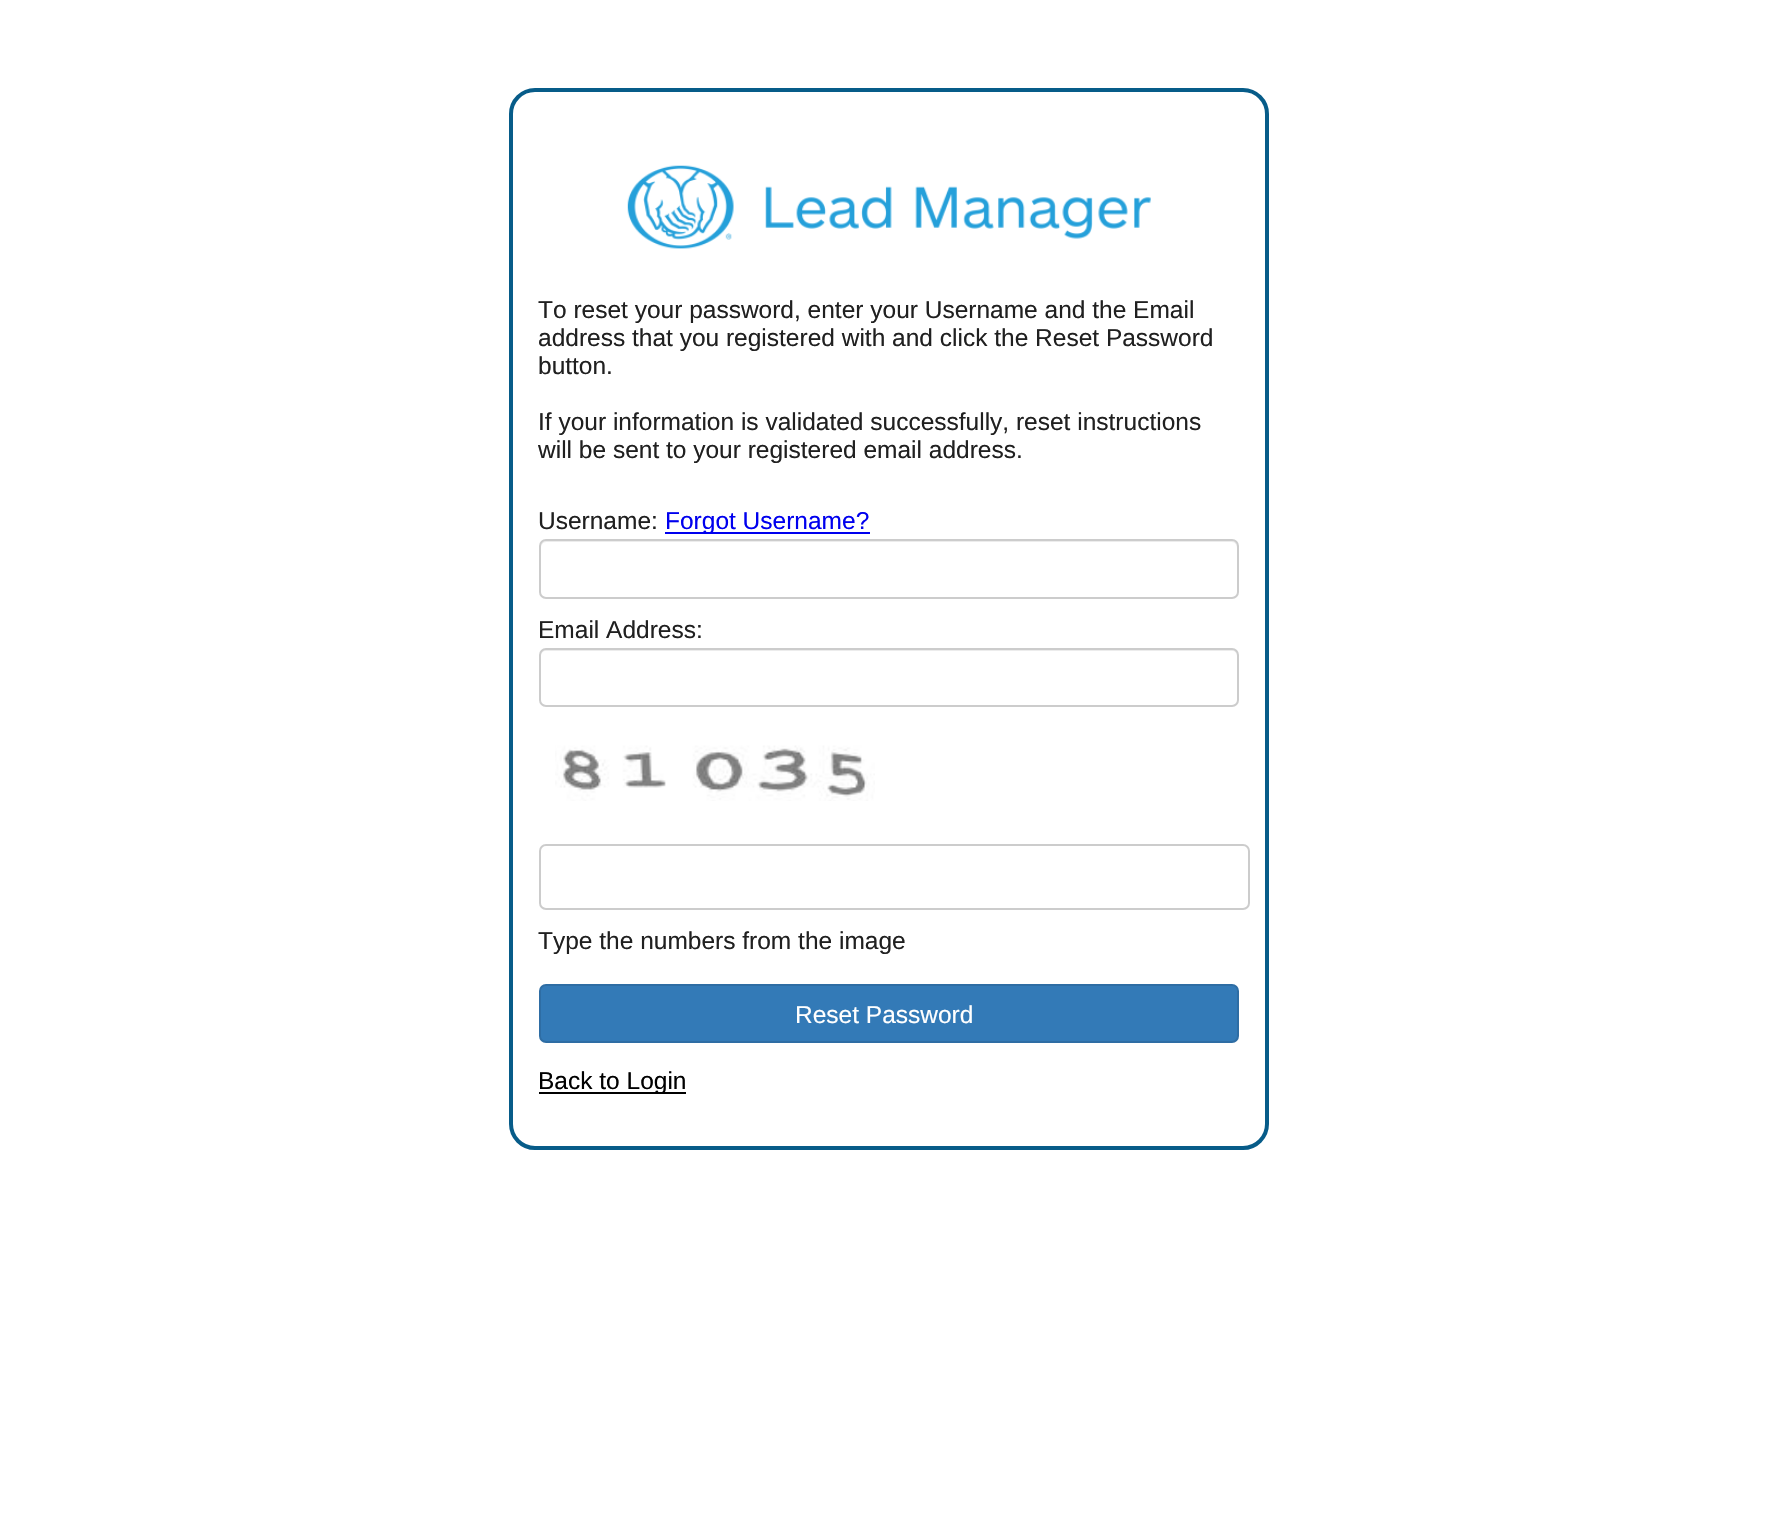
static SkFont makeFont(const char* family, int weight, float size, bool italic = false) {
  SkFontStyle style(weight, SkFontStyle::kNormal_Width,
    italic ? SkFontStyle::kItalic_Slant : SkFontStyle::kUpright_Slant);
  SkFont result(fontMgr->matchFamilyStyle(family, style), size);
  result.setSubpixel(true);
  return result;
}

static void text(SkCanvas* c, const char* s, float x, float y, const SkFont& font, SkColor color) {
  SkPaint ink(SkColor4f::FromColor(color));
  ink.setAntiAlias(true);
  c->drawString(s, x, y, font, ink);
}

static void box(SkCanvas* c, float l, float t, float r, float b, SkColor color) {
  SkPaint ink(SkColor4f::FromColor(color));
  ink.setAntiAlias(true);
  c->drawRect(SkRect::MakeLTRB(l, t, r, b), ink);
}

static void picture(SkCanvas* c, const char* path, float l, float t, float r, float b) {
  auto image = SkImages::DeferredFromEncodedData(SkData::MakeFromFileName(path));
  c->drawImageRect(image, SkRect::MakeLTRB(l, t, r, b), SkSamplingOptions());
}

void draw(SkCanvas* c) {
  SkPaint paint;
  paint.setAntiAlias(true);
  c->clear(0xffffffff);
  paint.setStyle(SkPaint::kStroke_Style);
  paint.setStrokeWidth(4);
  paint.setColor(0xff075c89);
  c->drawRoundRect(SkRect::MakeLTRB(511, 90, 1267, 1148), 24, 24, paint);
  picture(c, "img_01.png", 627, 165, 1151, 249);
  SkFont face1 = makeFont("Liberation Sans", 400, 24.5f);
  text(c, "To reset your password, enter your Username and the Email", 538, 318, face1, 0xff202020);
  text(c, "address that you registered with and click the Reset Password", 538, 346, face1, 0xff202020);
  text(c, "button.", 538, 374, face1, 0xff202020);
  text(c, "If your information is validated successfully, reset instructions", 538, 430, face1, 0xff202020);
  text(c, "will be sent to your registered email address.", 538, 458, face1, 0xff202020);
  text(c, "Username:", 538, 529, face1, 0xff202020);
  box(c, 665, 532, 870, 534, 0xff0000ee);
  text(c, "Forgot Username?", 665, 529, face1, 0xff0000ee);
  paint.setStyle(SkPaint::kFill_Style);
  paint.setColor(0xffececec);
  c->drawPath(SkPathBuilder().moveTo(546, 542).lineTo(1232, 542).cubicTo(1235, 542, 1237, 545, 1237, 548).lineTo(1237, 546).cubicTo(1237, 543, 1235, 541, 1232, 541).lineTo(546, 541).cubicTo(543, 541, 541, 543, 541, 546).lineTo(541, 548).cubicTo(541, 545, 543, 542, 546, 542).close().detach(), paint);
  paint.setStyle(SkPaint::kStroke_Style);
  paint.setStrokeWidth(2);
  paint.setColor(0xffcccccc);
  c->drawRoundRect(SkRect::MakeLTRB(540, 540, 1238, 598), 6, 6, paint);
  text(c, "Email Address:", 538, 638, face1, 0xff202020);
  paint.setStyle(SkPaint::kFill_Style);
  paint.setColor(0xffececec);
  c->drawPath(SkPathBuilder().moveTo(546, 651).lineTo(1232, 651).cubicTo(1235, 651, 1237, 653, 1237, 656).lineTo(1237, 654).cubicTo(1237, 651, 1235, 649, 1232, 649).lineTo(546, 649).cubicTo(543, 649, 541, 651, 541, 654).lineTo(541, 656).cubicTo(541, 653, 543, 651, 546, 651).close().detach(), paint);
  paint.setStyle(SkPaint::kStroke_Style);
  paint.setColor(0xffcccccc);
  c->drawRoundRect(SkRect::MakeLTRB(540, 649, 1238, 706), 6, 6, paint);
  picture(c, "img_02.png", 555, 745, 875, 801);
  c->drawRoundRect(SkRect::MakeLTRB(540, 845, 1249, 909), 6, 6, paint);
  text(c, "Type the numbers from the image", 538, 949, face1, 0xff202020);
  paint.setStyle(SkPaint::kFill_Style);
  paint.setColor(0xff337ab7);
  c->drawRoundRect(SkRect::MakeLTRB(540, 985, 1238, 1042), 6, 6, paint);
  paint.setStyle(SkPaint::kStroke_Style);
  paint.setColor(0xff2e6da4);
  c->drawRoundRect(SkRect::MakeLTRB(540, 985, 1238, 1042), 6, 6, paint);
  text(c, "Reset Password", 795, 1023, face1, 0xffffffff);
  box(c, 539, 1092, 686, 1094, 0xff000000);
  text(c, "Back to Login", 538, 1089, face1, 0xff000000);
}
